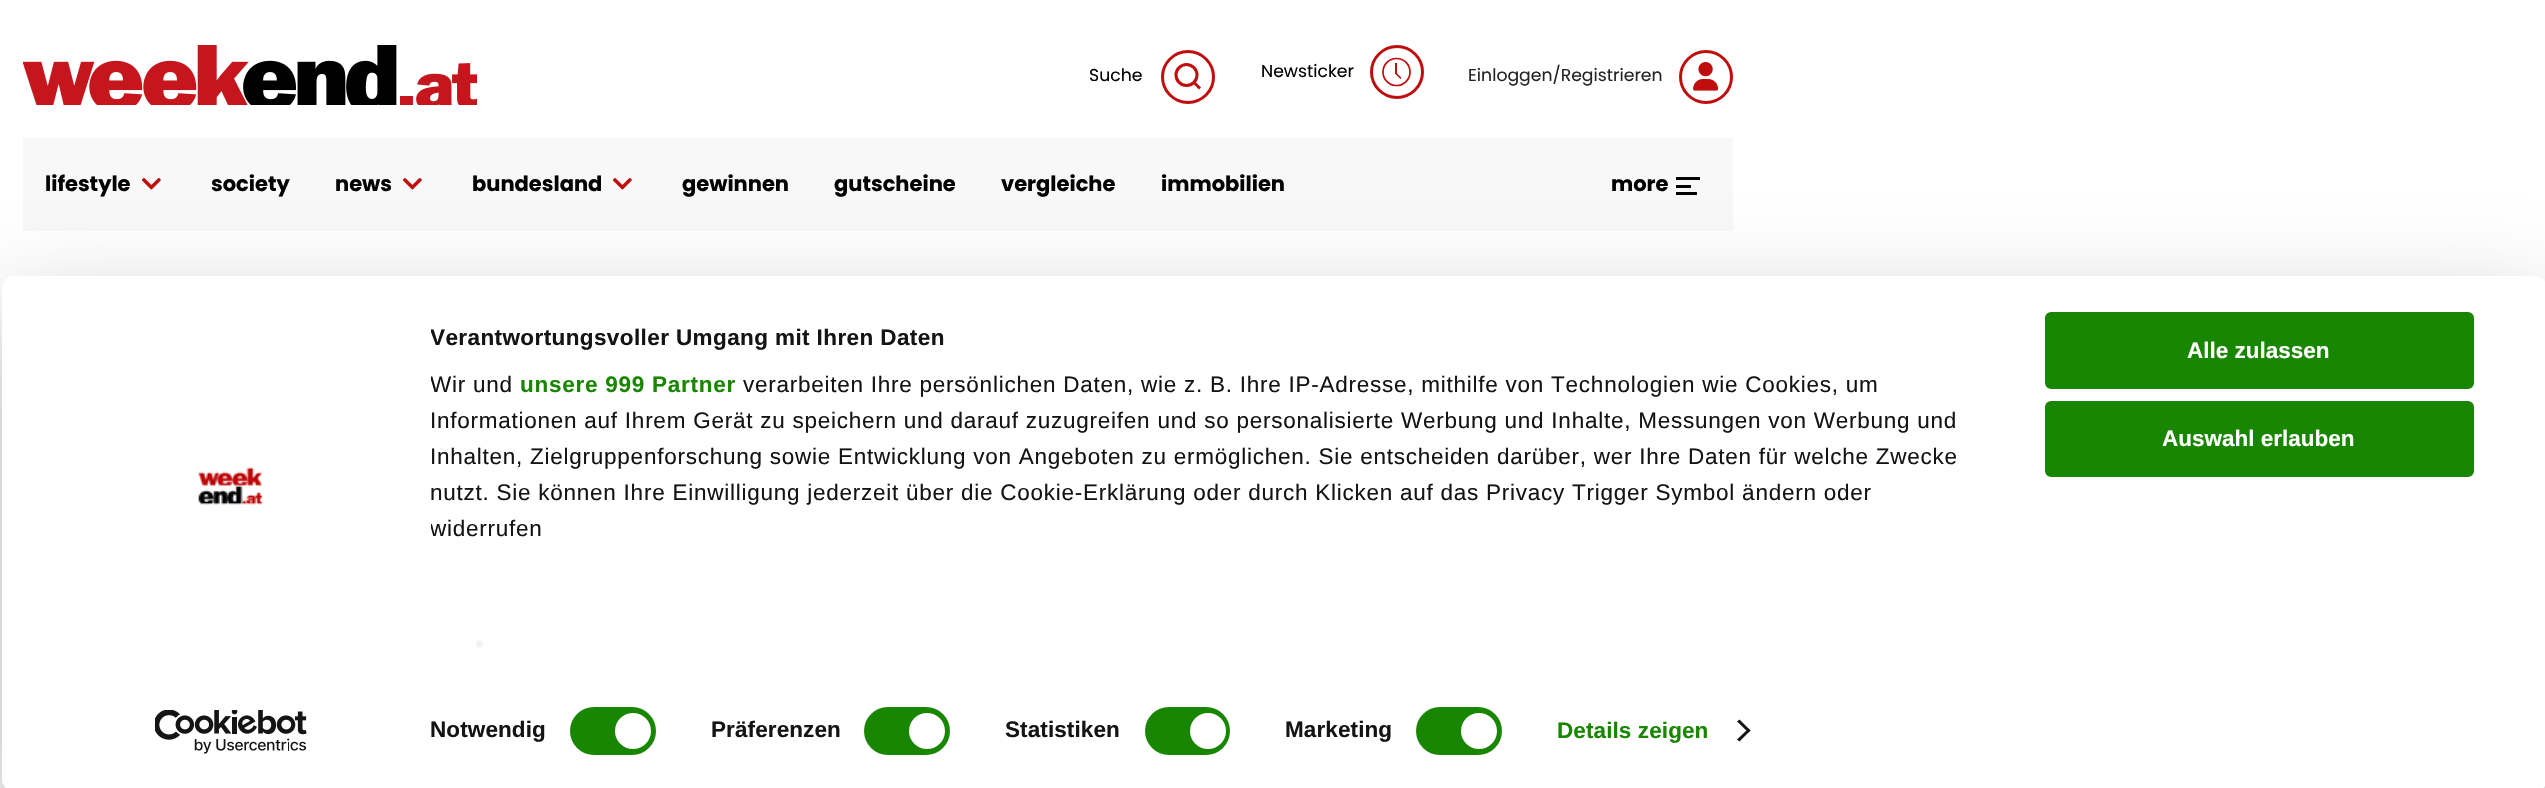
static SkFont makeFont(const char* family, int weight, float size, bool italic = false) {
  SkFontStyle style(weight, SkFontStyle::kNormal_Width,
    italic ? SkFontStyle::kItalic_Slant : SkFontStyle::kUpright_Slant);
  SkFont result(fontMgr->matchFamilyStyle(family, style), size);
  result.setSubpixel(true);
  return result;
}

static void text(SkCanvas* c, const char* s, float x, float y, const SkFont& font, SkColor color) {
  SkPaint ink(SkColor4f::FromColor(color));
  ink.setAntiAlias(true);
  c->drawString(s, x, y, font, ink);
}

static void spacedText(SkCanvas* c, const char* s, float x, float y, const SkFont& font, const SkPaint& ink, float letter, float word) {
  std::vector<SkGlyphID> glyphs(font.countText(s, strlen(s), SkTextEncoding::kUTF8));
  std::vector<float> xs(glyphs.size());
  font.textToGlyphs(s, strlen(s), SkTextEncoding::kUTF8, glyphs);
  font.getXPos(glyphs, xs, x);
  float extra = 0;
  for (size_t i = 0; i < glyphs.size(); i++) {
    xs[i] += extra;
    extra += letter + word * (glyphs[i] == font.unicharToGlyph(' '));
  }
  c->drawTextBlob(SkTextBlob::MakeFromPosHGlyphs(glyphs, xs, y, font), 0, 0, ink);
}

static void box(SkCanvas* c, float l, float t, float r, float b, SkColor color) {
  SkPaint ink(SkColor4f::FromColor(color));
  ink.setAntiAlias(true);
  c->drawRect(SkRect::MakeLTRB(l, t, r, b), ink);
}

static void roundBox(SkCanvas* c, float l, float t, float r, float b, float radius, SkColor color) {
  SkPaint ink(SkColor4f::FromColor(color));
  ink.setAntiAlias(true);
  c->drawRoundRect(SkRect::MakeLTRB(l, t, r, b), radius, radius, ink);
}

static void picture(SkCanvas* c, const char* path, float l, float t, float r, float b) {
  auto image = SkImages::DeferredFromEncodedData(SkData::MakeFromFileName(path));
  c->drawImageRect(image, SkRect::MakeLTRB(l, t, r, b), SkSamplingOptions());
}

void draw(SkCanvas* c) {
  SkPaint paint;
  paint.setAntiAlias(true);
  c->clear(0xffffffff);
  picture(c, "img_01.png", 23, 45, 477, 105);
  SkFont face1 = makeFont("Poppins", 400, 17.25f);
  text(c, "Suche", 1089, 81, face1, 0xff030303);
  paint.setStyle(SkPaint::kStroke_Style);
  paint.setStrokeWidth(3);
  paint.setColor(0xffc00d0d);
  c->drawCircle(1188, 77, 25.5f, paint);
  c->drawCircle(1186.5f, 75, 10.5f, paint);
  c->drawPath(SkPathBuilder().moveTo(1194, 82.5f).lineTo(1200, 88.5f).close().detach(), paint);
  text(c, "Newsticker", 1261, 77, face1, 0xff030303);
  c->drawCircle(1397, 72, 25.5f, paint);
  paint.setStrokeWidth(1.7f);
  c->drawCircle(1396.5f, 72, 13.5f, paint);
  box(c, 1395, 63, 1397, 74, 0xffc00d0d);
  c->drawPath(SkPathBuilder().moveTo(1401, 78.5f).lineTo(1395.5f, 73).detach(), paint);
  text(c, "Einloggen/Registrieren", 1468, 81, face1, 0xff242424);
  paint.setStrokeWidth(3);
  c->drawCircle(1706, 77, 25.5f, paint);
  picture(c, "img_02.png", 1693, 62, 1719, 91);
  box(c, 23, 138, 1733, 231, 0xfff8f8f8);
  SkFont face2 = makeFont("Poppins", 700, 21);
  text(c, "lifestyle", 45, 191, face2, 0xff030303);
  picture(c, "img_03.png", 142, 178, 161, 190);
  text(c, "society", 211, 191, face2, 0xff030303);
  text(c, "news", 335, 191, face2, 0xff030303);
  picture(c, "img_03.png", 403, 178, 422, 190);
  text(c, "bundesland", 472, 191, face2, 0xff030303);
  picture(c, "img_03.png", 613, 178, 632, 190);
  text(c, "gewinnen", 682, 191, face2, 0xff030303);
  text(c, "gutscheine", 834, 191, face2, 0xff030303);
  text(c, "vergleiche", 1001, 191, face2, 0xff030303);
  text(c, "immobilien", 1161, 191, face2, 0xff030303);
  text(c, "more", 1611, 191, face2, 0xff030303);
  box(c, 1676, 177, 1700, 180, 0xff030303);
  box(c, 1676, 185, 1691, 188, 0xff030303);
  box(c, 1676, 192, 1697, 195, 0xff030303);
  c->save();
  c->clipPath(SkPathBuilder(SkPathFillType::kEvenOdd).moveTo(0, 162).lineTo(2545, 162).lineTo(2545, 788).lineTo(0, 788).close().moveTo(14, 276).lineTo(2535, 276).cubicTo(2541.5f, 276, 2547, 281.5f, 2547, 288).lineTo(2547, 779).cubicTo(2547, 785.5f, 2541.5f, 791, 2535, 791).lineTo(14, 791).cubicTo(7.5f, 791, 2, 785.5f, 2, 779).lineTo(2, 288).cubicTo(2, 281.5f, 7.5f, 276, 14, 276).close().detach(), true);
  paint.setStyle(SkPaint::kFill_Style);
  paint.setColor(0x4d000000);
  paint.setMaskFilter(SkMaskFilter::MakeBlur(kNormal_SkBlurStyle, 52.5f));
  c->drawRoundRect(SkRect::MakeLTRB(2, 321, 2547, 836), 12, 12, paint);
  paint.setMaskFilter(nullptr);
  c->restore();
  roundBox(c, 2, 276, 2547, 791, 12, 0xffffffff);
  c->save();
  c->clipRect(SkRect::MakeLTRB(431, 321, 2003, 653));
  SkFont face3 = makeFont("Liberation Sans", 700, 22.5f);
  paint.setColor(0xff141414);
  spacedText(c, "Verantwortungsvoller Umgang mit Ihren Daten", 430, 345, face3, paint, 0.4f, 0);
  SkFont face4 = makeFont("Liberation Sans", 400, 22.5f);
  spacedText(c, "Wir und", 430, 392, face4, paint, 0.75f, 0);
  c->restore();
  paint.setColor(0xff188600);
  spacedText(c, "unsere 999 Partner", 520, 392, face3, paint, 0.75f, 0);
  paint.setColor(0xff141414);
  spacedText(c, "verarbeiten Ihre persönlichen Daten, wie z. B. Ihre IP-Adresse, mithilfe von Technologien wie Cookies, um", 743, 392, face4, paint, 0.75f, 0);
  spacedText(c, "Informationen auf Ihrem Gerät zu speichern und darauf zuzugreifen und so personalisierte Werbung und Inhalte, Messungen von Werbung und", 430, 428, face4, paint, 0.75f, 0);
  spacedText(c, "Inhalten, Zielgruppenforschung sowie Entwicklung von Angeboten zu ermöglichen. Sie entscheiden darüber, wer Ihre Daten für welche Zwecke", 430, 464, face4, paint, 0.75f, 0);
  spacedText(c, "nutzt. Sie können Ihre Einwilligung jederzeit über die Cookie-Erklärung oder durch Klicken auf das Privacy Trigger Symbol ändern oder", 430, 500, face4, paint, 0.75f, 0);
  c->save();
  c->clipRect(SkRect::MakeLTRB(431, 321, 2003, 653));
  spacedText(c, "widerrufen", 430, 536, face4, paint, 0.75f, 0);
  c->restore();
  c->drawCircle(479.5f, 644.5f, 3.5f, paint);
  {
    const SkColor colors[] = {0xffffffff, 0xccffffff, 0x00ffffff};
    const float stops[] = {0, 0.5f, 1};
    const SkPoint ends[] = {{1201, 661}, {1201, 548}};
    paint.setShader(SkGradientShader::MakeLinear(ends, colors, stops, 3, SkTileMode::kClamp));
    paint.setAlpha(255);
  }
  c->drawRect(SkRect::MakeLTRB(476, 641, 483, 648), paint);
  paint.setShader(nullptr);
  paint.setColor(0xff141414);
  spacedText(c, "Notwendig", 430, 737, face3, paint, 0.1f, 0);
  roundBox(c, 570, 707, 656, 755, 24, 0xff188600);
  paint.setColor(0xffffffff);
  c->drawCircle(633, 731, 18, paint);
  paint.setColor(0xff141414);
  spacedText(c, "Präferenzen", 711, 737, face3, paint, 0.1f, 0);
  roundBox(c, 864, 707, 950, 755, 24, 0xff188600);
  paint.setColor(0xffffffff);
  c->drawCircle(927, 731, 18, paint);
  paint.setColor(0xff141414);
  spacedText(c, "Statistiken", 1005, 737, face3, paint, 0.1f, 0);
  roundBox(c, 1145, 707, 1230, 755, 24, 0xff188600);
  paint.setColor(0xffffffff);
  c->drawCircle(1208, 731, 18, paint);
  paint.setColor(0xff141414);
  spacedText(c, "Marketing", 1285, 737, face3, paint, 0.1f, 0);
  roundBox(c, 1416, 707, 1502, 755, 24, 0xff188600);
  paint.setColor(0xffffffff);
  c->drawCircle(1479, 731, 18, paint);
  paint.setColor(0xff188600);
  spacedText(c, "Details zeigen", 1557, 738, face3, paint, 0.1f, 0);
  paint.setColor(0xff141414);
  c->drawPath(SkPathBuilder().moveTo(1739.5f, 719.5f).lineTo(1750.5f, 730.5f).lineTo(1748.5f, 732.5f).lineTo(1737, 721.5f).close().detach(), paint);
  c->drawPath(SkPathBuilder().moveTo(1748.5f, 728.5f).lineTo(1750.5f, 730.5f).lineTo(1739.5f, 741.5f).lineTo(1737, 739.5f).close().detach(), paint);
  paint.setColor(0xff188600);
  c->drawRoundRect(SkRect::MakeLTRB(2046.5f, 313.5f, 2472.5f, 387.5f), 4.5f, 4.5f, paint);
  paint.setStyle(SkPaint::kStroke_Style);
  c->drawRoundRect(SkRect::MakeLTRB(2046.5f, 313.5f, 2472.5f, 387.5f), 4.5f, 4.5f, paint);
  text(c, "Alle zulassen", 2187, 358, face3, 0xffffffff);
  paint.setStyle(SkPaint::kFill_Style);
  c->drawRoundRect(SkRect::MakeLTRB(2046.5f, 402.5f, 2472.5f, 475.5f), 4.5f, 4.5f, paint);
  paint.setStyle(SkPaint::kStroke_Style);
  c->drawRoundRect(SkRect::MakeLTRB(2046.5f, 402.5f, 2472.5f, 475.5f), 4.5f, 4.5f, paint);
  text(c, "Auswahl erlauben", 2162, 446, face3, 0xffffffff);
  picture(c, "img_04.png", 198, 467, 264, 505);
  picture(c, "img_05.png", 155, 710, 307, 754);
}
